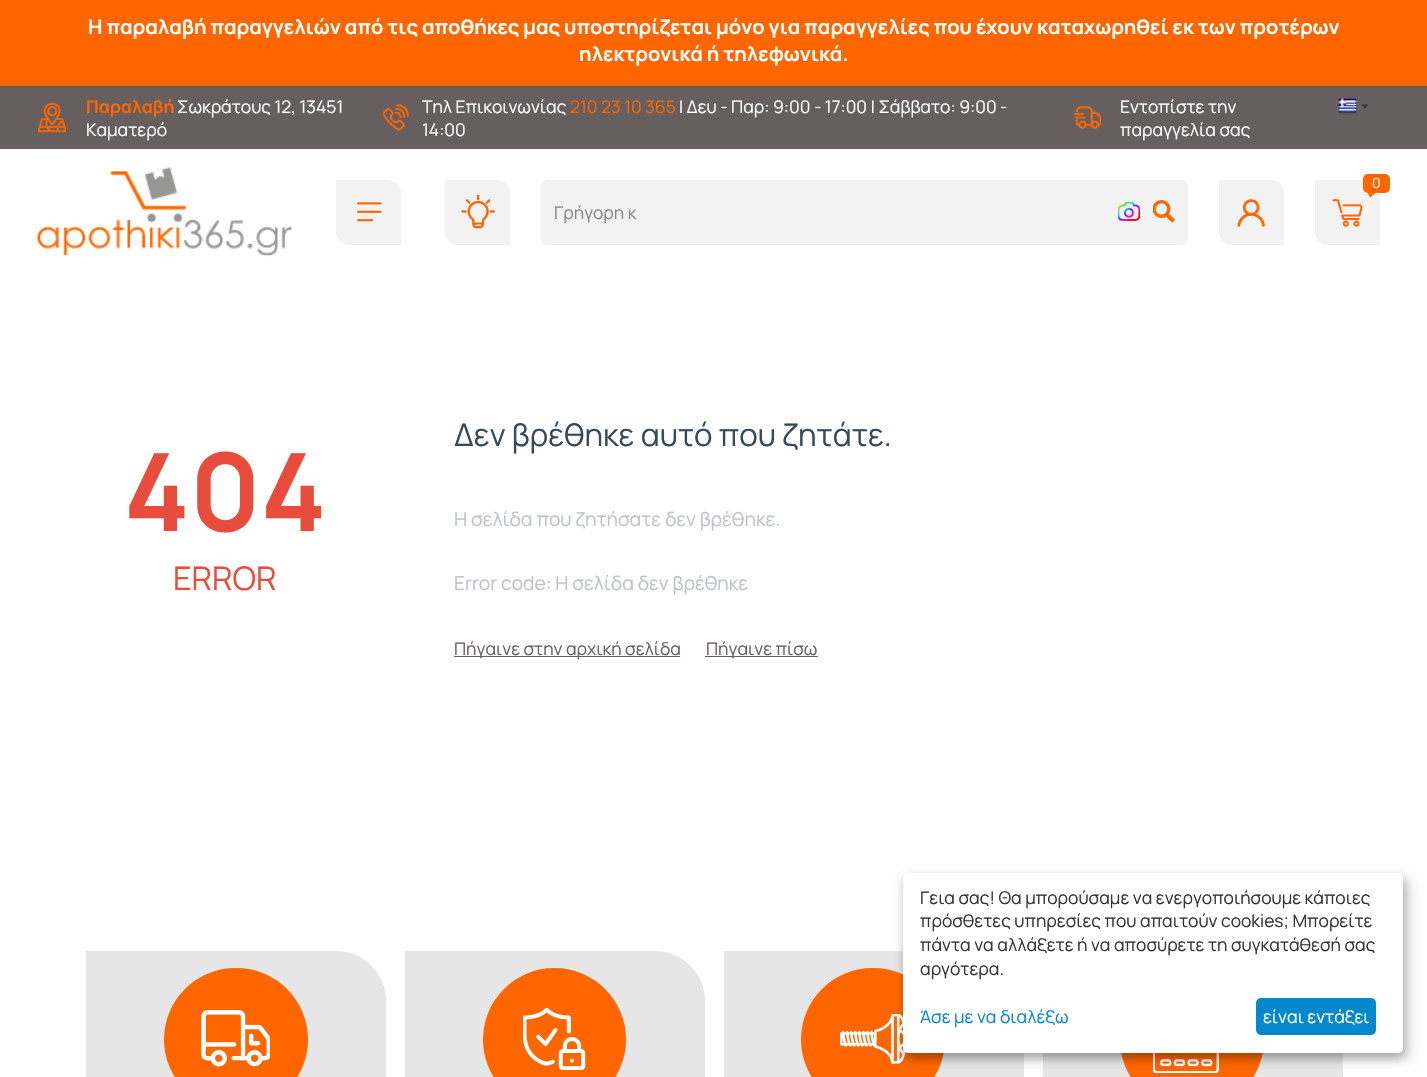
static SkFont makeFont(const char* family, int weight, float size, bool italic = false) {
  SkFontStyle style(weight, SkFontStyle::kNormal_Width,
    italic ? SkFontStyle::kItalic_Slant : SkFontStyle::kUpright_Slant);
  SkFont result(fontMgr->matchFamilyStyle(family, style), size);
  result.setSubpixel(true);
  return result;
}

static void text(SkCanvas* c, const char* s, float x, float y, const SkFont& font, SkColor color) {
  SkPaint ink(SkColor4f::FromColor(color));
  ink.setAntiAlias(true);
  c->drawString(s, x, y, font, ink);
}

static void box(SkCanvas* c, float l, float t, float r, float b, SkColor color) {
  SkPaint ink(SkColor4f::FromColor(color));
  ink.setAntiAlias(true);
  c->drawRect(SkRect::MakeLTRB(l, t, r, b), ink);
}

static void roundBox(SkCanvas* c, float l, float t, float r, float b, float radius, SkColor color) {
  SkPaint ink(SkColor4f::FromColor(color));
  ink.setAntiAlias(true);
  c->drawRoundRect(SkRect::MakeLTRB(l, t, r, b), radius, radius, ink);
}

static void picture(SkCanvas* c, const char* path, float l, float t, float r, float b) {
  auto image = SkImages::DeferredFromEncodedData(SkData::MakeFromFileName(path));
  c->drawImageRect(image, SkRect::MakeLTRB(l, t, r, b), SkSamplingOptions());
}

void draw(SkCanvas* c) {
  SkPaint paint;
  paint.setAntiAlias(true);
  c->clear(0xffffffff);
  box(c, 0, 86, 1427, 149, 0xff675f5f);
  box(c, 0, 0, 1427, 86, 0xffff6600);
  SkFont face1 = makeFont("Manrope", 700, 20);
  text(c, "Η παραλαβή παραγγελιών από τις αποθήκες μας υποστηρίζεται μόνο για παραγγελίες που έχουν καταχωρηθεί εκ των προτέρων", 88, 34, face1, 0xffffffff);
  text(c, "ηλεκτρονικά ή τηλεφωνικά.", 579, 61, face1, 0xffffffff);
  picture(c, "img_01.png", 38, 102, 66, 133);
  SkFont face2 = makeFont("Manrope", 700, 17.5f);
  text(c, "Παραλαβή", 86, 113, face2, 0xffff6600);
  SkFont face3 = makeFont("Manrope", 400, 17.5f);
  text(c, "Σωκράτους 12, 13451", 177, 113, face3, 0xffffffff);
  text(c, "Καματερό", 86, 136, face3, 0xffffffff);
  picture(c, "img_02.png", 383, 104, 409, 131);
  text(c, "Τηλ Επικοινωνίας", 422, 113, face3, 0xffffffff);
  text(c, "210 23 10 365", 570, 113, face3, 0xffff6600);
  text(c, "Ι Δευ - Παρ: 9:00 - 17:00 | Σάββατο: 9:00 -", 679, 113, face3, 0xffffffff);
  text(c, "14:00", 422, 136, face3, 0xffffffff);
  picture(c, "img_03.png", 1074, 106, 1101, 129);
  text(c, "Εντοπίστε την", 1120, 113, face3, 0xffffffff);
  text(c, "παραγγελία σας", 1120, 136, face3, 0xffffffff);
  picture(c, "img_04.png", 1338, 98, 1357, 114);
  paint.setColor(0xff2d3540);
  c->drawPath(SkPathBuilder().moveTo(1365, 108.5f).lineTo(1361, 104.5f).lineTo(1368.5f, 104.5f).close().detach(), paint);
  picture(c, "img_05.png", 37, 167, 293, 257);
  paint.setColor(0xfff2f2f2);
  c->drawPath(SkPathBuilder().moveTo(336, 180).lineTo(388, 180).cubicTo(395, 180, 401, 186, 401, 193).lineTo(401, 245).lineTo(349, 245).cubicTo(342, 245, 336, 239, 336, 232).close().detach(), paint);
  picture(c, "img_06.png", 357, 202, 382, 222);
  c->drawPath(SkPathBuilder().moveTo(445, 180).lineTo(497, 180).cubicTo(504, 180, 510, 186, 510, 193).lineTo(510, 245).lineTo(458, 245).cubicTo(451, 245, 445, 239, 445, 232).close().detach(), paint);
  picture(c, "img_07.png", 461, 194, 495, 229);
  c->drawRoundRect(SkRect::MakeLTRB(541.5f, 180.5f, 1187.5f, 244.5f), 5.5f, 5.5f, paint);
  paint.setStyle(SkPaint::kStroke_Style);
  paint.setStrokeWidth(1);
  c->drawRoundRect(SkRect::MakeLTRB(541.5f, 180.5f, 1187.5f, 244.5f), 5.5f, 5.5f, paint);
  text(c, "Γρήγορη κ", 554, 219, face3, 0xff888888);
  picture(c, "img_08.png", 1118, 201, 1140, 221);
  picture(c, "img_09.png", 1153, 200, 1175, 223);
  paint.setStyle(SkPaint::kFill_Style);
  c->drawPath(SkPathBuilder().moveTo(1219, 180).lineTo(1271, 180).cubicTo(1278, 180, 1284, 186, 1284, 193).lineTo(1284, 245).lineTo(1232, 245).cubicTo(1225, 245, 1219, 239, 1219, 232).close().detach(), paint);
  picture(c, "img_10.png", 1237, 199, 1265, 227);
  c->drawPath(SkPathBuilder().moveTo(1315, 180).lineTo(1367, 180).cubicTo(1374, 180, 1380, 186, 1380, 193).lineTo(1380, 245).lineTo(1328, 245).cubicTo(1321, 245, 1315, 239, 1315, 232).close().detach(), paint);
  roundBox(c, 1363, 174, 1390, 193, 5, 0xffff6600);
  SkFont face4 = makeFont("Manrope", 400, 14);
  text(c, "0", 1372, 188, face4, 0xffffffff);
  paint.setColor(0xffff6600);
  c->drawPath(SkPathBuilder().moveTo(1367.5f, 192.5f).lineTo(1376, 192.5f).lineTo(1370, 197.5f).close().detach(), paint);
  picture(c, "img_11.png", 1332, 199, 1363, 227);
  SkFont face5 = makeFont("Manrope", 700, 108);
  text(c, "404", 124, 531, face5, 0xffe74c3c);
  SkFont face6 = makeFont("Manrope", 400, 32.5f);
  text(c, "ERROR", 173, 590, face6, 0xffe74c3c);
  SkFont face7 = makeFont("Manrope", 400, 31.25f);
  text(c, "Δεν βρέθηκε αυτό που ζητάτε.", 454, 446, face7, 0xff34495e);
  SkFont face8 = makeFont("Manrope", 400, 19.25f);
  text(c, "Η σελίδα που ζητήσατε δεν βρέθηκε.", 454, 526, face8, 0xffbdc3c7);
  text(c, "Error code: Η σελίδα δεν βρέθηκε", 454, 590, face8, 0xffbdc3c7);
  box(c, 454, 656, 680, 657, 0xff675f5f);
  text(c, "Πήγαινε στην αρχική σελίδα", 454, 655, face3, 0xff675f5f);
  box(c, 705, 656, 818, 657, 0xff675f5f);
  text(c, "Πήγαινε πίσω", 706, 655, face3, 0xff675f5f);
  paint.setColor(0xffe6e6e6);
  c->drawPath(SkPathBuilder().moveTo(86, 951).lineTo(336, 951).cubicTo(363.5f, 951, 386, 973.5f, 386, 1001).lineTo(386, 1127).lineTo(136, 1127).cubicTo(108.5f, 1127, 86, 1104.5f, 86, 1077).close().detach(), paint);
  roundBox(c, 164, 968, 308, 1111, 71.5f, 0xffff6600);
  picture(c, "img_12.png", 201, 1010, 270, 1067);
  c->drawPath(SkPathBuilder().moveTo(405, 951).lineTo(655, 951).cubicTo(682.5f, 951, 705, 973.5f, 705, 1001).lineTo(705, 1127).lineTo(455, 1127).cubicTo(427.5f, 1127, 405, 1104.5f, 405, 1077).close().detach(), paint);
  paint.setColor(0xffff6600);
  c->drawCircle(554.5f, 1039.5f, 71.5f, paint);
  picture(c, "img_13.png", 523, 1008, 586, 1070);
  box(c, 724, 951, 1024, 1077, 0xffe6e6e6);
  roundBox(c, 801, 968, 945, 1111, 71.5f, 0xffff6600);
  picture(c, "img_14.png", 840, 1014, 906, 1064);
  box(c, 1043, 1053, 1343, 1077, 0xffe6e6e6);
  roundBox(c, 1120, 968, 1264, 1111, 71.5f, 0xffff6600);
  picture(c, "img_15.png", 1153, 1053, 1220, 1073);
  paint.setColor(0x30000000);
  paint.setMaskFilter(SkMaskFilter::MakeBlur(kNormal_SkBlurStyle, 6));
  c->drawRoundRect(SkRect::MakeLTRB(909, 879, 1409, 1059), 5, 5, paint);
  paint.setMaskFilter(nullptr);
  paint.setColor(0x33000000);
  paint.setMaskFilter(SkMaskFilter::MakeBlur(kNormal_SkBlurStyle, 4));
  c->drawRoundRect(SkRect::MakeLTRB(903, 878, 1403, 1058), 5, 5, paint);
  paint.setMaskFilter(nullptr);
  roundBox(c, 903, 873, 1403, 1053, 5, 0xffffffff);
  text(c, "Γεια σας! Θα μπορούσαμε να ενεργοποιήσουμε κάποιες", 920, 904, face3, 0xff333333);
  text(c, "πρόσθετες υπηρεσίες που απαιτούν cookies; Μπορείτε", 920, 927, face3, 0xff333333);
  text(c, "πάντα να αλλάξετε ή να αποσύρετε τη συγκατάθεσή σας", 920, 951, face3, 0xff333333);
  text(c, "αργότερα.", 920, 975, face3, 0xff333333);
  text(c, "Άσε με να διαλέξω", 920, 1023, face3, 0xff0388cc);
  roundBox(c, 1256, 998, 1376, 1035, 5, 0xff0388cc);
  text(c, "είναι εντάξει", 1263, 1023, face3, 0xffffffff);
}
